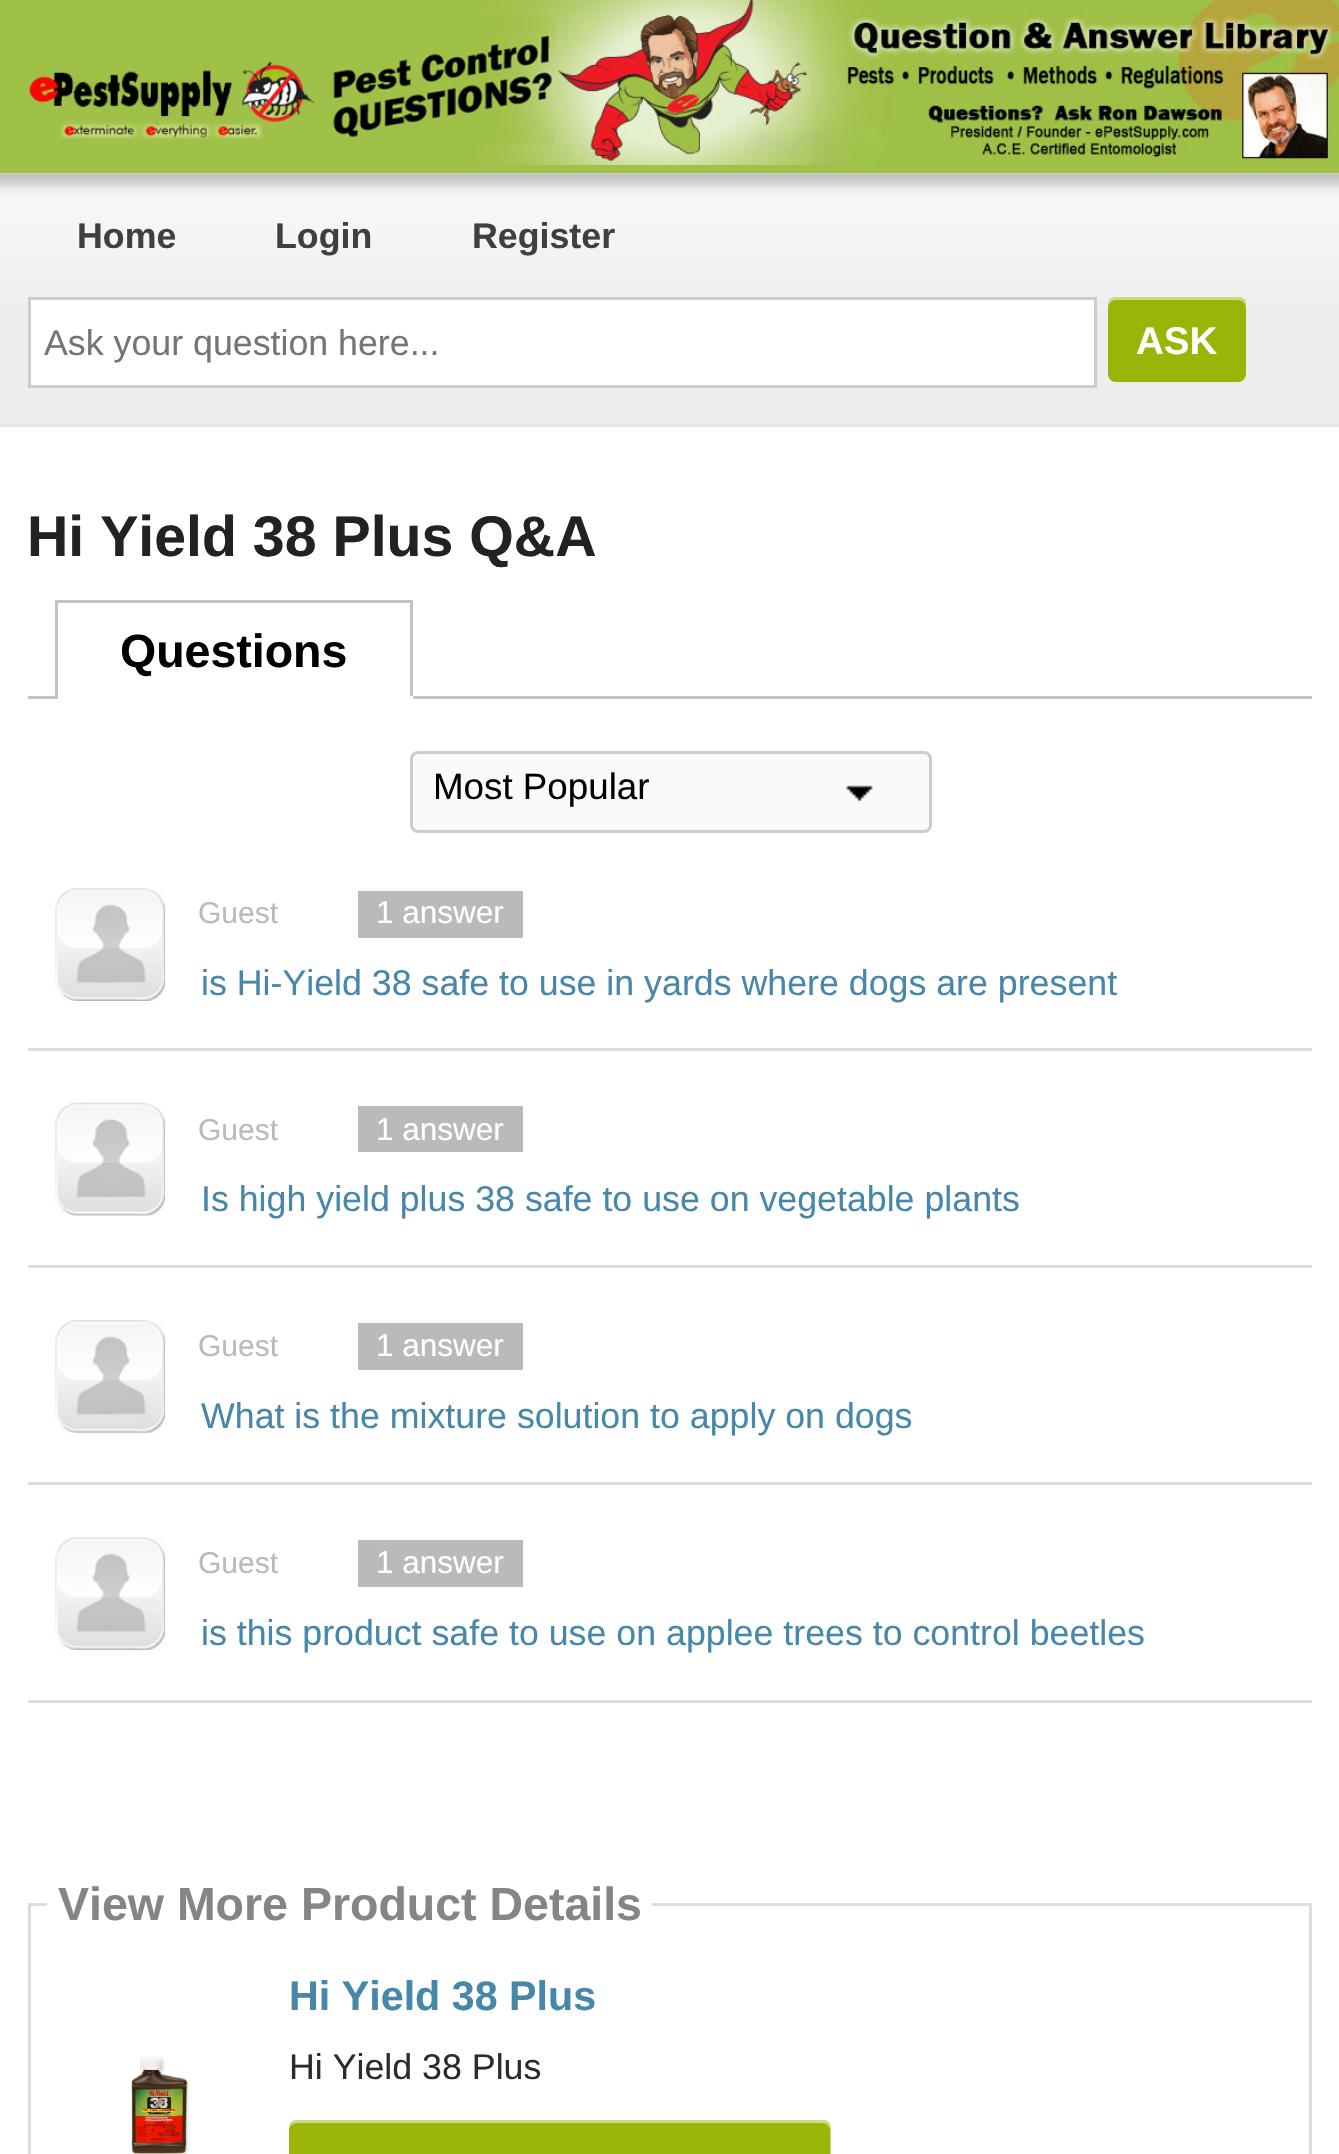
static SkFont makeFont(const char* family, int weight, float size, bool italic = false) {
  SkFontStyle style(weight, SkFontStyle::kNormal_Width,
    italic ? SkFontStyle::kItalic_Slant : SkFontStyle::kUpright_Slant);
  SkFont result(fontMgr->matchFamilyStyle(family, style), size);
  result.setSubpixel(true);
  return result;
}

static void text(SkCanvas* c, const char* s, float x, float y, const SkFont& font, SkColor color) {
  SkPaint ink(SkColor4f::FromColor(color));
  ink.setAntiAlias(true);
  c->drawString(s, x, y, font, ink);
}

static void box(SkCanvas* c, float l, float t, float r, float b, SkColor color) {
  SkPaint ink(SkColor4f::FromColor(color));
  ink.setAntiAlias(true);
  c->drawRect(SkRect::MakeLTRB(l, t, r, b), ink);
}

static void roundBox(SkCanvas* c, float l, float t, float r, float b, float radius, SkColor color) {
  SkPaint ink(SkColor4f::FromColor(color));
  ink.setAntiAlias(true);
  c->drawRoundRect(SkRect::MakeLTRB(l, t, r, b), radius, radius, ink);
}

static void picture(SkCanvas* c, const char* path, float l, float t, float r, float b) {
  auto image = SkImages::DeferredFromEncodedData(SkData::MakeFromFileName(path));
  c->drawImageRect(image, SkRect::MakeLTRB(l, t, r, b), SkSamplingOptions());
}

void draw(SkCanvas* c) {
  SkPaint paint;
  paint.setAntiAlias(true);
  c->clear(0xffffffff);
  box(c, 0, 0, 1339, 173, 0xff9fc148);
  picture(c, "img_01.png", 29, 0, 1339, 165);
  picture(c, "img_02.png", 0, 173, 1339, 424);
  box(c, 0, 424, 1339, 427, 0xffe6e6e6);
  SkFont face1 = makeFont("Liberation Sans", 700, 35.75f);
  text(c, "Home", 77, 248, face1, 0xff3f3f40);
  text(c, "Login", 275, 248, face1, 0xff3f3f40);
  text(c, "Register", 472, 248, face1, 0xff3f3f40);
  paint.setColor(0xffffffff);
  c->drawRect(SkRect::MakeLTRB(29.5f, 298.5f, 1095.5f, 386.5f), paint);
  paint.setStyle(SkPaint::kStroke_Style);
  paint.setStrokeWidth(3);
  paint.setColor(0xffcccccc);
  c->drawRect(SkRect::MakeLTRB(29.5f, 298.5f, 1095.5f, 386.5f), paint);
  SkFont face2 = makeFont("Liberation Sans", 400, 35.75f);
  text(c, "Ask your question here...", 44, 355, face2, 0xff757575);
  roundBox(c, 1108, 297, 1246, 382, 8, 0xff9ab508);
  paint.setStyle(SkPaint::kFill_Style);
  paint.setColor(0x80ffffff);
  c->drawPath(SkPathBuilder().moveTo(1116, 300).lineTo(1238, 300).cubicTo(1242, 300, 1246, 303, 1246, 308).lineTo(1246, 305).cubicTo(1246, 301, 1242, 297, 1238, 297).lineTo(1116, 297).cubicTo(1112, 297, 1108, 301, 1108, 305).lineTo(1108, 308).cubicTo(1108, 303, 1112, 300, 1116, 300).close().detach(), paint);
  SkFont face3 = makeFont("Liberation Sans", 700, 38.5f);
  text(c, "ASK", 1136, 354, face3, 0xffffffff);
  SkFont face4 = makeFont("Liberation Sans", 700, 57.25f);
  text(c, "Hi Yield 38 Plus Q&A", 27, 556, face4, 0xff222222);
  box(c, 55, 600, 413, 603, 0xffc4c4c4);
  box(c, 410, 600, 413, 699, 0xffc4c4c4);
  box(c, 410, 696, 413, 699, 0xffffffff);
  box(c, 55, 600, 58, 699, 0xffc4c4c4);
  SkFont face5 = makeFont("Liberation Sans", 700, 46.5f);
  text(c, "Questions", 120, 667, face5, 0xff000000);
  box(c, 28, 696, 55, 699, 0xffc4c4c4);
  box(c, 413, 696, 1312, 699, 0xffc4c4c4);
  roundBox(c, 410, 751, 932, 833, 8, 0xfffafafa);
  picture(c, "img_03.png", 846, 785, 873, 802);
  paint.setStyle(SkPaint::kStroke_Style);
  paint.setColor(0xffcccccc);
  c->drawRoundRect(SkRect::MakeLTRB(411.5f, 752.5f, 930.5f, 831.5f), 6.5f, 6.5f, paint);
  SkFont face6 = makeFont("Liberation Sans", 400, 36.75f);
  text(c, "Most Popular", 433, 799, face6, 0xff000000);
  picture(c, "img_04.png", 55, 888, 165, 1001);
  SkFont face7 = makeFont("Liberation Sans", 400, 30);
  text(c, "Guest", 198, 923, face7, 0xffbababa);
  box(c, 358, 891, 523, 938, 0xffbababa);
  SkFont face8 = makeFont("Liberation Sans", 400, 31.5f);
  text(c, "1 answer", 376, 923, face8, 0xffffffff);
  text(c, "is Hi-Yield 38 safe to use in yards where dogs are present", 201, 995, face2, 0xff4787aa);
  box(c, 28, 1048, 1312, 1051, 0xffdddddd);
  picture(c, "img_05.png", 55, 1102, 165, 1216);
  text(c, "Guest", 198, 1140, face7, 0xffbababa);
  box(c, 358, 1106, 523, 1152, 0xffbababa);
  text(c, "1 answer", 376, 1140, face8, 0xffffffff);
  text(c, "Is high yield plus 38 safe to use on vegetable plants", 201, 1211, face2, 0xff4787aa);
  box(c, 28, 1265, 1312, 1268, 0xffdddddd);
  picture(c, "img_06.png", 55, 1320, 165, 1433);
  text(c, "Guest", 198, 1356, face7, 0xffbababa);
  box(c, 358, 1323, 523, 1370, 0xffbababa);
  text(c, "1 answer", 376, 1356, face8, 0xffffffff);
  text(c, "What is the mixture solution to apply on dogs", 201, 1428, face2, 0xff4787aa);
  box(c, 28, 1482, 1312, 1485, 0xffdddddd);
  picture(c, "img_04.png", 55, 1537, 165, 1650);
  text(c, "Guest", 198, 1573, face7, 0xffbababa);
  box(c, 358, 1540, 523, 1587, 0xffbababa);
  text(c, "1 answer", 376, 1573, face8, 0xffffffff);
  text(c, "is this product safe to use on applee trees to control beetles", 201, 1645, face2, 0xff4787aa);
  box(c, 28, 1700, 1312, 1703, 0xffdddddd);
  paint.setColor(0xffdddddd);
  c->drawRect(SkRect::MakeLTRB(29.5f, 1904.5f, 1310.5f, 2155.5f), paint);
  box(c, 47, 1903, 652, 1906, 0xffffffff);
  text(c, "View More Product Details", 58, 1920, face5, 0xff858585);
  SkFont face9 = makeFont("Liberation Sans", 700, 41.25f);
  text(c, "Hi Yield 38 Plus", 289, 2010, face9, 0xff4787aa);
  text(c, "Hi Yield 38 Plus", 289, 2079, face2, 0xff282b30);
  roundBox(c, 289, 2120, 831, 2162, 8, 0xff9ab508);
  paint.setStyle(SkPaint::kFill_Style);
  paint.setColor(0x80ffffff);
  c->drawPath(SkPathBuilder().moveTo(297, 2123).lineTo(822, 2123).cubicTo(827, 2123, 830, 2127, 830, 2131).lineTo(830, 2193).cubicTo(831, 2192, 831, 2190, 831, 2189).lineTo(831, 2128).cubicTo(831, 2124, 827, 2120, 823, 2120).lineTo(297, 2120).cubicTo(293, 2120, 289, 2124, 289, 2128).lineTo(289, 2131).cubicTo(289, 2127, 292, 2123, 297, 2123).close().detach(), paint);
  picture(c, "img_07.png", 131, 2056, 190, 2154);
}
